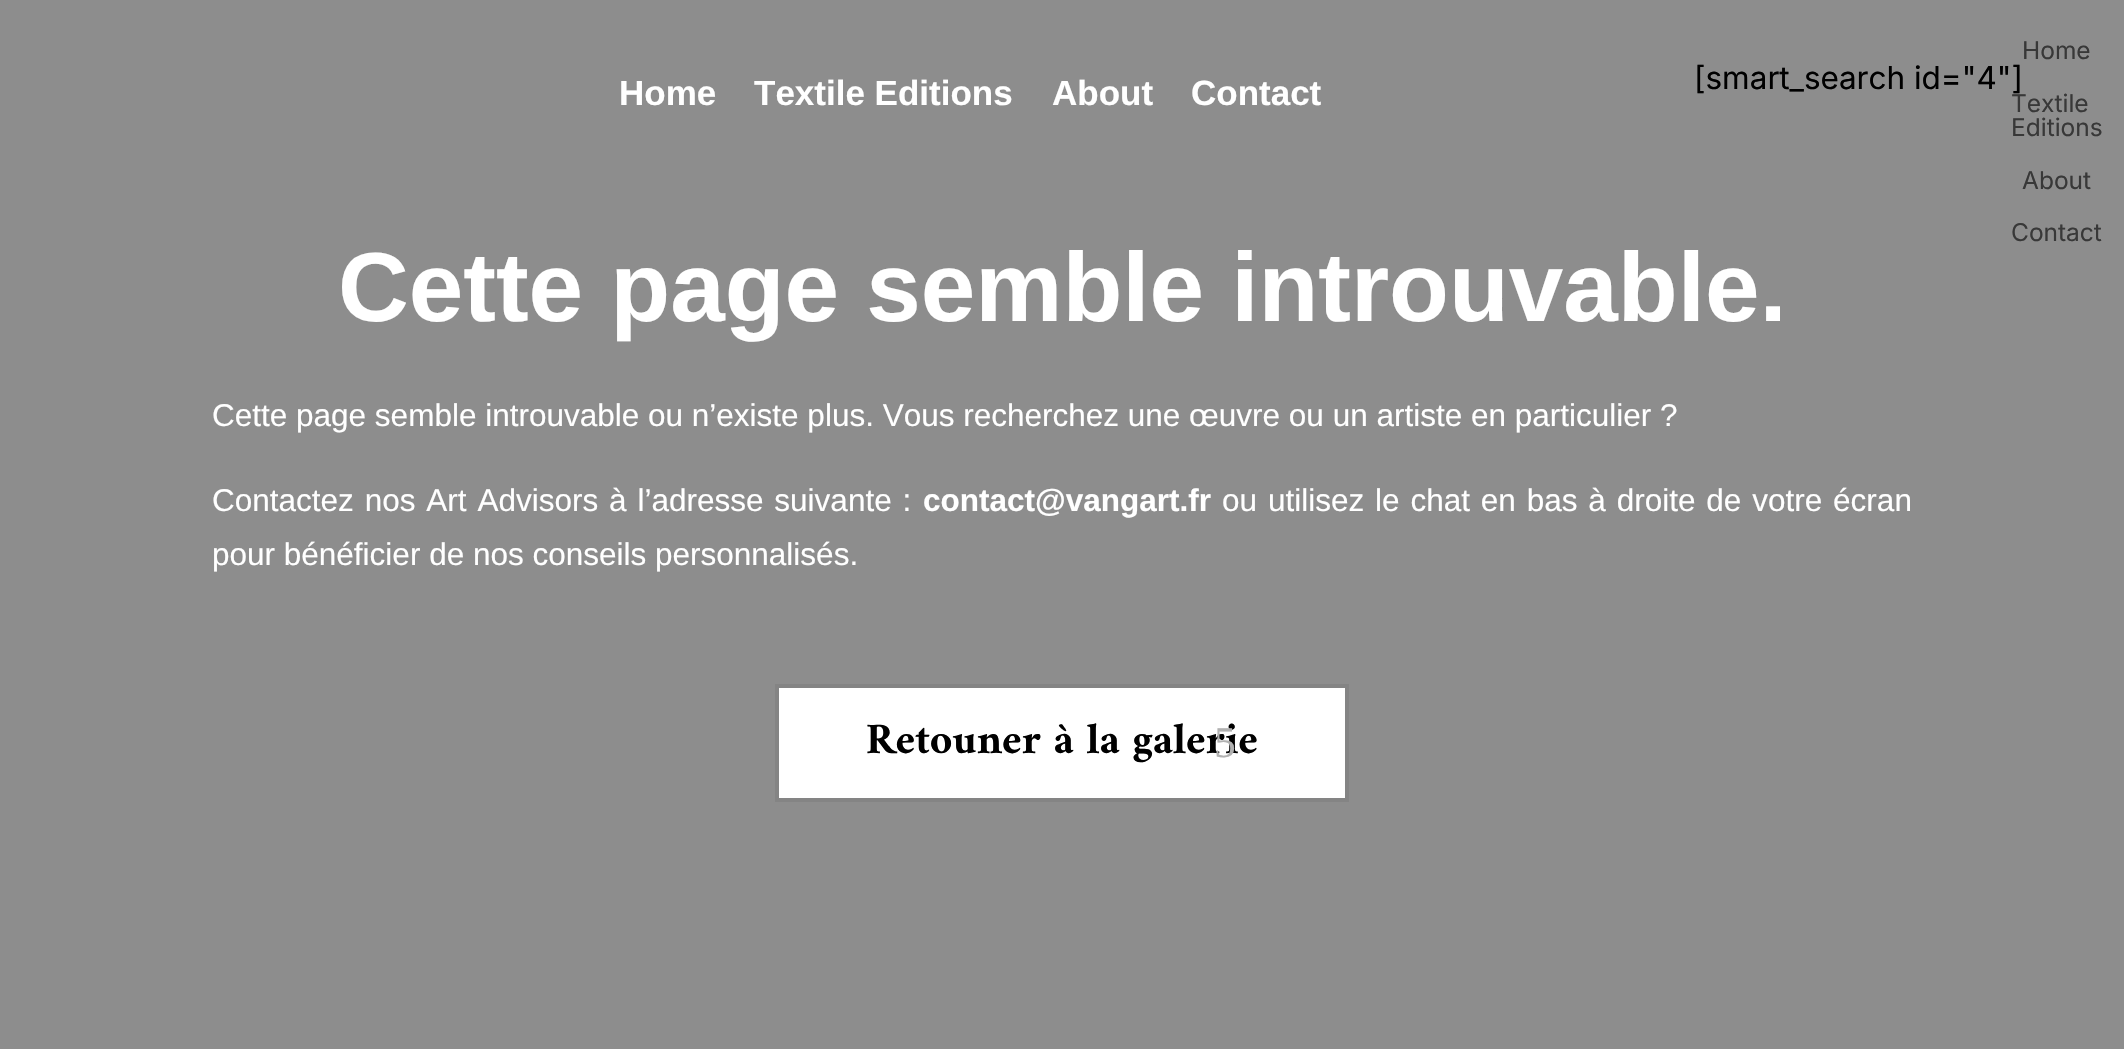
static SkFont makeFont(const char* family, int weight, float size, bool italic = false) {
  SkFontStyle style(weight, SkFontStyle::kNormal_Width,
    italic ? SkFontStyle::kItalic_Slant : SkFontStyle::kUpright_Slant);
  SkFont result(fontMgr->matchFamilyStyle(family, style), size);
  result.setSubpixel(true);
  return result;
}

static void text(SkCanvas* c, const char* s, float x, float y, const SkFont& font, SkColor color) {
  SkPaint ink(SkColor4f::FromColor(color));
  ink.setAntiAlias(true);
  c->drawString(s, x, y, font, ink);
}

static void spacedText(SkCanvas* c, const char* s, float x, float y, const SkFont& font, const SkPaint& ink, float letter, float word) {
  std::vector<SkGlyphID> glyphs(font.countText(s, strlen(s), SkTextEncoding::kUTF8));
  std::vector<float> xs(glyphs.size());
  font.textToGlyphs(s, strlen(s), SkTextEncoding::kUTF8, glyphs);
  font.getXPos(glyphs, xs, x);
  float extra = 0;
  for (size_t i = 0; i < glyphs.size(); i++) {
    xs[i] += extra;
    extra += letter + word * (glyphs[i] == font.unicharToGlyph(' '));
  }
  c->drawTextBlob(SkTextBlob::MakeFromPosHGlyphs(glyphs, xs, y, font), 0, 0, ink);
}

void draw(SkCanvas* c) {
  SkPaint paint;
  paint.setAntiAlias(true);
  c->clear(0xff8d8d8d);
  SkFont face1 = makeFont("Liberation Sans", 700, 35);
  text(c, "Home", 619, 105, face1, 0xffffffff);
  text(c, "Textile Editions", 754, 105, face1, 0xffffffff);
  text(c, "About", 1052, 105, face1, 0xffffffff);
  text(c, "Contact", 1191, 105, face1, 0xffffffff);
  SkFont face2 = makeFont("Inter", 400, 31.5f);
  text(c, "[smart_search id=\"4\"]", 1694, 89, face2, 0xff000000);
  SkFont face3 = makeFont("Inter", 400, 24.5f);
  text(c, "Home", 2022, 59, face3, 0xff383838);
  text(c, "Textile", 2011, 112, face3, 0xff383838);
  text(c, "Editions", 2011, 136, face3, 0xff383838);
  text(c, "About", 2022, 189, face3, 0xff383838);
  text(c, "Contact", 2011, 241, face3, 0xff383838);
  SkFont face4 = makeFont("Liberation Sans", 700, 98);
  text(c, "Cette page semble introuvable.", 338, 321, face4, 0xffffffff);
  SkFont face5 = makeFont("Liberation Sans", 400, 31.5f);
  text(c, "Cette page semble introuvable ou n’existe plus. Vous recherchez une œuvre ou un artiste en particulier ?", 212, 426, face5, 0xffffffff);
  paint.setColor(0xffffffff);
  spacedText(c, "Contactez nos Art Advisors à l’adresse suivante :", 212, 511, face5, paint, 0, 2.1f);
  SkFont face6 = makeFont("Liberation Sans", 700, 31.5f);
  text(c, "contact@vangart.fr", 923, 511, face6, 0xffffffff);
  spacedText(c, "ou utilisez le chat en bas à droite de votre écran", 1222, 511, face5, paint, 0, 2.1f);
  text(c, "pour bénéficier de nos conseils personnalisés.", 212, 565, face5, 0xffffffff);
  c->drawRect(SkRect::MakeLTRB(777, 686, 1347, 800), paint);
  paint.setStyle(SkPaint::kStroke_Style);
  paint.setStrokeWidth(4);
  paint.setColor(0xff848484);
  c->drawRect(SkRect::MakeLTRB(777, 686, 1347, 800), paint);
  SkFont face7 = makeFont("Amiri", 700, 43.75f);
  text(c, "Retouner à la galerie", 866, 753, face7, 0xff000000);
  SkFont face8 = makeFont("Liberation Serif", 400, 43.75f);
  text(c, "5", 1214, 757, face8, 0xffb1b1b1);
}
